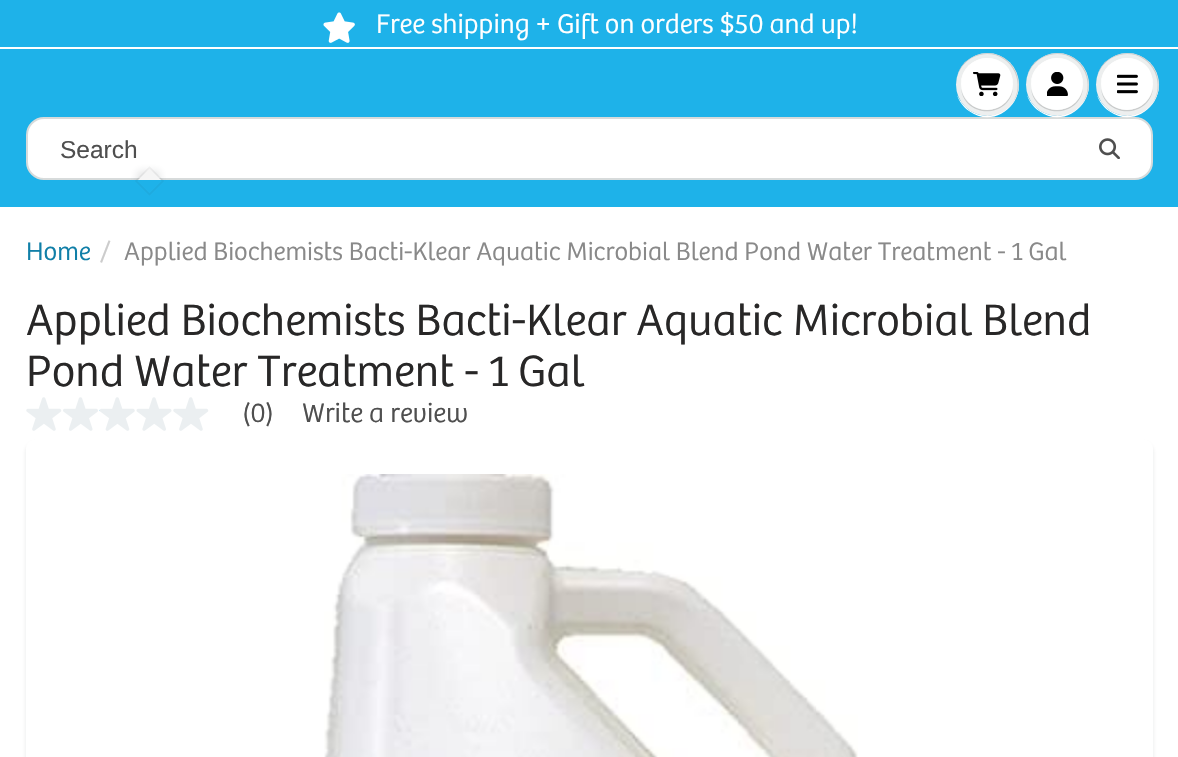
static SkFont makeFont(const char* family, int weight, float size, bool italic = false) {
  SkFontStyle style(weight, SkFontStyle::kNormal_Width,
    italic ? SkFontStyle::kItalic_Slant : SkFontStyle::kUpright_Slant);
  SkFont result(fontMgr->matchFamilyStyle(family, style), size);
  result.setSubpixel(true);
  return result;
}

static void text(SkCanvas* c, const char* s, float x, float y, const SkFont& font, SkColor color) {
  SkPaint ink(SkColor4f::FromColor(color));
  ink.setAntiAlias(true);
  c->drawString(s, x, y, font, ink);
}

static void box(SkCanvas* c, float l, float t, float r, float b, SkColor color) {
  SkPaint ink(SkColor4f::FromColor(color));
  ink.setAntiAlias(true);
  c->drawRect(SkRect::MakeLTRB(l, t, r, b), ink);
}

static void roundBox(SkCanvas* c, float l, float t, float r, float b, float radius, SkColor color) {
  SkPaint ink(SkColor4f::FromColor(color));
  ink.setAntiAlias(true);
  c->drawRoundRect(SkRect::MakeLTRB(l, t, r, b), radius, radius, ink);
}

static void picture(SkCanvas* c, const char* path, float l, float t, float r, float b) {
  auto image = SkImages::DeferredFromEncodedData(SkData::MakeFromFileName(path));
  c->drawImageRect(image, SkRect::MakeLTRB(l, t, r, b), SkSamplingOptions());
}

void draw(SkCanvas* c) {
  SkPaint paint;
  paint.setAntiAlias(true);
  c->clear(0xffffffff);
  box(c, 0, 0, 1178, 47, 0xff1eb2e9);
  picture(c, "img_01.png", 323, 12, 355, 43);
  SkFont face1 = makeFont("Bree", 300, 28);
  text(c, "Free shipping + Gift on orders $50 and up!", 376, 33, face1, 0xffffffff);
  box(c, 0, 49, 1178, 207, 0xff1eb2e9);
  paint.setColor(0xffffffff);
  c->drawRoundRect(SkRect::MakeLTRB(27, 118, 1152, 179), 17, 17, paint);
  paint.setStyle(SkPaint::kStroke_Style);
  paint.setStrokeWidth(2);
  paint.setColor(0xffd7dbdb);
  c->drawRoundRect(SkRect::MakeLTRB(27, 118, 1152, 179), 17, 17, paint);
  paint.setStyle(SkPaint::kFill_Style);
  paint.setColor(0xffffffff);
  c->drawPath(SkPathBuilder().moveTo(957, 95).cubicTo(959, 101, 963, 107, 969, 111).cubicTo(994, 130, 1027, 103, 1017, 75).cubicTo(1026, 103, 993, 127, 969, 110).cubicTo(964, 106, 960, 101, 957, 95).close().detach(), paint);
  paint.setColor(0xffedefef);
  c->drawCircle(987.5f, 84.5f, 31.5f, paint);
  paint.setColor(0xffc9cbcb);
  c->drawPath(SkPathBuilder().moveTo(987, 54).cubicTo(1013, 54, 1027, 85, 1011, 105).cubicTo(1030, 83, 1011, 48, 981, 54).cubicTo(975, 55, 970, 58, 965, 62).cubicTo(959, 68, 956, 77, 956, 85).cubicTo(956, 68, 970, 54, 987, 54).close().detach(), paint);
  c->drawPath(SkPathBuilder().moveTo(1013, 88).cubicTo(1008, 117, 966, 117, 961, 88).cubicTo(964, 119, 1010, 119, 1013, 88).close().detach(), paint);
  paint.setColor(0xffffffff);
  c->drawCircle(987, 84, 26, paint);
  c->drawPath(SkPathBuilder().moveTo(987, 60).cubicTo(1001, 60, 1012, 71, 1013, 85).cubicTo(1013, 80, 1012, 74, 1009, 69).cubicTo(994, 48, 960, 59, 961, 85).cubicTo(962, 71, 973, 60, 987, 60).close().detach(), paint);
  picture(c, "img_02.png", 973, 72, 1001, 96);
  c->drawPath(SkPathBuilder().moveTo(1027, 95).cubicTo(1029, 101, 1033, 107, 1039, 111).cubicTo(1064, 130, 1097, 103, 1087, 75).cubicTo(1096, 103, 1063, 127, 1039, 110).cubicTo(1034, 106, 1030, 101, 1027, 95).close().detach(), paint);
  paint.setColor(0xffedefef);
  c->drawCircle(1057.5f, 84.5f, 31.5f, paint);
  paint.setColor(0xffc9cbcb);
  c->drawPath(SkPathBuilder().moveTo(1057, 54).cubicTo(1083, 54, 1097, 85, 1081, 105).cubicTo(1100, 83, 1081, 48, 1051, 54).cubicTo(1045, 55, 1040, 58, 1035, 62).cubicTo(1029, 68, 1026, 77, 1026, 85).cubicTo(1026, 68, 1040, 54, 1057, 54).close().detach(), paint);
  c->drawPath(SkPathBuilder().moveTo(1031, 88).cubicTo(1034, 119, 1080, 119, 1083, 88).cubicTo(1078, 117, 1036, 117, 1031, 88).close().detach(), paint);
  paint.setColor(0xffffffff);
  c->drawCircle(1057, 84, 26, paint);
  c->drawPath(SkPathBuilder().moveTo(1057, 60).cubicTo(1071, 60, 1082, 71, 1083, 85).cubicTo(1083, 80, 1082, 74, 1079, 69).cubicTo(1064, 48, 1030, 59, 1031, 85).cubicTo(1032, 71, 1043, 60, 1057, 60).close().detach(), paint);
  picture(c, "img_03.png", 1047, 72, 1068, 96);
  c->drawPath(SkPathBuilder().moveTo(1097, 95).cubicTo(1099, 101, 1103, 107, 1109, 111).cubicTo(1134, 130, 1167, 103, 1157, 75).cubicTo(1166, 103, 1133, 127, 1109, 110).cubicTo(1104, 106, 1100, 101, 1097, 95).close().detach(), paint);
  paint.setColor(0xffedefef);
  c->drawCircle(1127.5f, 84.5f, 31.5f, paint);
  paint.setColor(0xffc9cbcb);
  c->drawPath(SkPathBuilder().moveTo(1127, 54).cubicTo(1153, 54, 1167, 85, 1151, 105).cubicTo(1170, 83, 1151, 48, 1121, 54).cubicTo(1115, 55, 1110, 58, 1105, 62).cubicTo(1099, 68, 1096, 77, 1096, 85).cubicTo(1096, 68, 1110, 54, 1127, 54).close().detach(), paint);
  c->drawPath(SkPathBuilder().moveTo(1101, 88).cubicTo(1104, 119, 1150, 119, 1153, 88).cubicTo(1148, 117, 1106, 117, 1101, 88).close().detach(), paint);
  paint.setColor(0xffffffff);
  c->drawCircle(1127, 84, 26, paint);
  c->drawPath(SkPathBuilder().moveTo(1127, 60).cubicTo(1141, 60, 1152, 71, 1153, 85).cubicTo(1153, 80, 1152, 74, 1149, 69).cubicTo(1134, 48, 1100, 59, 1101, 85).cubicTo(1102, 71, 1113, 60, 1127, 60).close().detach(), paint);
  picture(c, "img_04.png", 1117, 74, 1138, 94);
  SkFont face2 = makeFont("Liberation Sans", 400, 24.5f);
  text(c, "Search", 60, 158, face2, 0xff4f4f4f);
  picture(c, "img_05.png", 1099, 138, 1120, 159);
  SkFont face3 = makeFont("Bree", 300, 26.25f);
  text(c, "Home", 26, 260, face3, 0xff107fa8);
  text(c, "/", 100, 260, face3, 0xffcccccc);
  text(c, "Applied Biochemists Bacti-Klear Aquatic Microbial Blend Pond Water Treatment - 1 Gal", 124, 260, face3, 0xff898989);
  SkFont face4 = makeFont("Bree", 300, 45.5f);
  text(c, "Applied Biochemists Bacti-Klear Aquatic Microbial Blend", 26, 335, face4, 0xff282727);
  text(c, "Pond Water Treatment - 1 Gal", 26, 386, face4, 0xff282727);
  picture(c, "img_06.png", 26, 397, 62, 431);
  picture(c, "img_07.png", 63, 397, 98, 431);
  picture(c, "img_08.png", 99, 397, 135, 431);
  picture(c, "img_09.png", 136, 397, 172, 431);
  picture(c, "img_06.png", 173, 397, 209, 431);
  text(c, "(0)", 242, 422, face1, 0xff4f4f4f);
  text(c, "Write a review", 302, 422, face1, 0xff4f4f4f);
  paint.setColor(0x1a0b191c);
  paint.setMaskFilter(SkMaskFilter::MakeBlur(kNormal_SkBlurStyle, 2));
  c->drawRoundRect(SkRect::MakeLTRB(26, 443, 1153, 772), 9, 9, paint);
  paint.setMaskFilter(nullptr);
  roundBox(c, 26, 439, 1153, 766, 9, 0xffffffff);
  picture(c, "img_10.png", 324, 474, 858, 757);
  c->save();
  c->clipRect(SkRect::MakeLTRB(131, 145, 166, 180));
  paint.setColor(0x29272c30);
  paint.setMaskFilter(SkMaskFilter::MakeBlur(kNormal_SkBlurStyle, 4.5f));
  c->drawRect(SkRect::MakeLTRB(138, 172, 159, 193), paint);
  paint.setMaskFilter(nullptr);
  c->restore();
  paint.setStyle(SkPaint::kStroke_Style);
  paint.setStrokeWidth(1.8f);
  paint.setColor(0x0d272c30);
  c->drawPath(SkPathBuilder().moveTo(149.5f, 167.5f).lineTo(163, 181).lineTo(149.5f, 194.5f).lineTo(136, 181).close().detach(), paint);
  c->save();
  c->clipRect(SkRect::MakeLTRB(131, 145, 166, 180));
  paint.setStyle(SkPaint::kFill_Style);
  paint.setColor(0xfff5f5f5);
  c->drawPath(SkPathBuilder().moveTo(149.5f, 168.5f).lineTo(162, 181).lineTo(149.5f, 193.5f).lineTo(137, 181).close().detach(), paint);
  c->restore();
}
